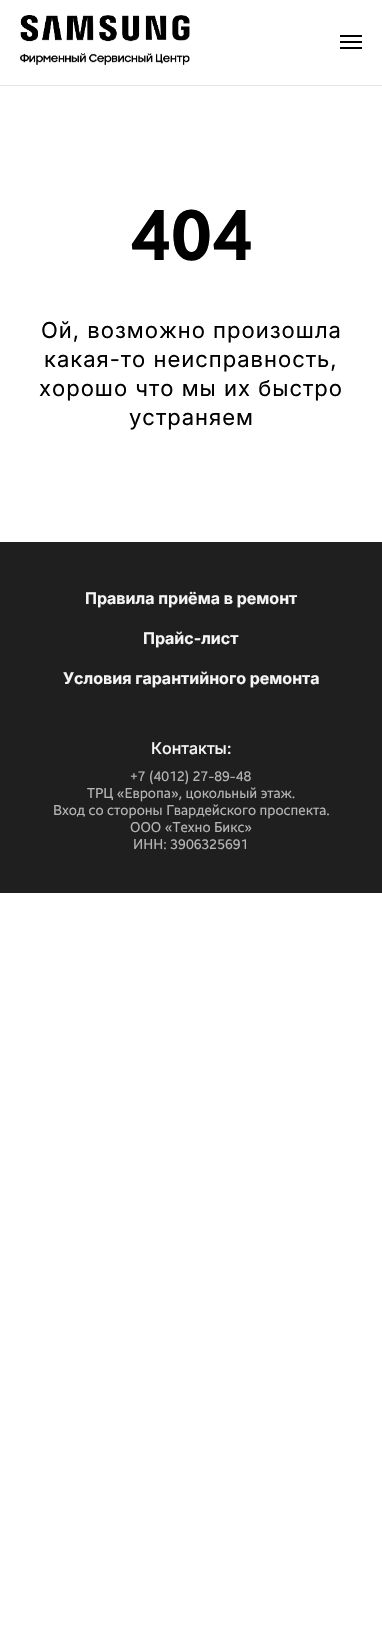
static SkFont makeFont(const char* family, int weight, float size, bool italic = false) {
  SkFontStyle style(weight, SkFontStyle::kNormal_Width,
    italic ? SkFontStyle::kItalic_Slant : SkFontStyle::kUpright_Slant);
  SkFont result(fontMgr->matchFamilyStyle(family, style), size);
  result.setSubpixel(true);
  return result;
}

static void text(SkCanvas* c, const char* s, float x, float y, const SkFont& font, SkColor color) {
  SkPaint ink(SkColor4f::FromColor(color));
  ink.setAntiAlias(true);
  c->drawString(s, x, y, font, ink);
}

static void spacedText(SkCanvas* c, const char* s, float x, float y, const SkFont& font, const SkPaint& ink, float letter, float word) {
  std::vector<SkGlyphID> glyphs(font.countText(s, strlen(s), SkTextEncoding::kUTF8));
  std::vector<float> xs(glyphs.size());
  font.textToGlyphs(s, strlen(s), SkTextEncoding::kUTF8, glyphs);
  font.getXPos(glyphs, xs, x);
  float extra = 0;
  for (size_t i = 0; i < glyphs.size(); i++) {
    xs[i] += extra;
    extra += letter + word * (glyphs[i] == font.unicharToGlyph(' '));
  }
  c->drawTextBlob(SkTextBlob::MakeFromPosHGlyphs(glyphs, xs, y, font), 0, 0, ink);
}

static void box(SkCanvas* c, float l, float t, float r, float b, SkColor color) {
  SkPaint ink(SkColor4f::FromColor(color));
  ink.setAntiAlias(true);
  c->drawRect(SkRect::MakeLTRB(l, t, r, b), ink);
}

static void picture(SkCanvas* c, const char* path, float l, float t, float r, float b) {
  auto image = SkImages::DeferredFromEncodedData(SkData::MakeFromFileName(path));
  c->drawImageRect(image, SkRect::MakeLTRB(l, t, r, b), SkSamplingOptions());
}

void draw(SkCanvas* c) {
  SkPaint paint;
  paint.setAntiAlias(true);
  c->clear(0xffffffff);
  box(c, 0, 85, 382, 86, 0xffe6e6e6);
  picture(c, "img_01.png", 20, 15, 190, 65);
  box(c, 340, 35, 362, 37, 0xff000000);
  box(c, 340, 41, 362, 43, 0xff000000);
  box(c, 340, 47, 362, 49, 0xff000000);
  SkFont face1 = makeFont("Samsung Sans", 700, 72);
  text(c, "404", 130, 260, face1, 0xff000000);
  SkFont face2 = makeFont("Inter", 400, 22);
  paint.setColor(0xff000000);
  spacedText(c, "Ой, возможно произошла", 41, 338, face2, paint, 1, 0);
  spacedText(c, "какая-то неисправность,", 44, 367, face2, paint, 1, 0);
  spacedText(c, "хорошо что мы их быстро", 39, 396, face2, paint, 1, 0);
  spacedText(c, "устраняем", 129, 425, face2, paint, 1, 0);
  box(c, 0, 542, 382, 893, 0xff1f1f1f);
  SkFont face3 = makeFont("Inter", 700, 16);
  text(c, "Правила приёма в ремонт", 85, 604, face3, 0xfff5f5f5);
  text(c, "Прайс-лист", 143, 644, face3, 0xfff5f5f5);
  text(c, "Условия гарантийного ремонта", 63, 684, face3, 0xfff5f5f5);
  SkFont face4 = makeFont("Inter", 500, 16);
  text(c, "Контакты:", 151, 754, face4, 0xfff5f5f5);
  SkFont face5 = makeFont("Samsung Sans", 400, 14);
  text(c, "+7 (4012) 27-89-48", 130, 781, face5, 0xffb5b5b5);
  text(c, "ТРЦ «Европа», цокольный этаж.", 87, 798, face5, 0xffb5b5b5);
  text(c, "Вход со стороны Гвардейского проспекта.", 53, 815, face5, 0xffb5b5b5);
  text(c, "ООО «Техно Бикс»", 130, 832, face5, 0xffb5b5b5);
  text(c, "ИНН: 3906325691", 133, 849, face5, 0xffb5b5b5);
}
